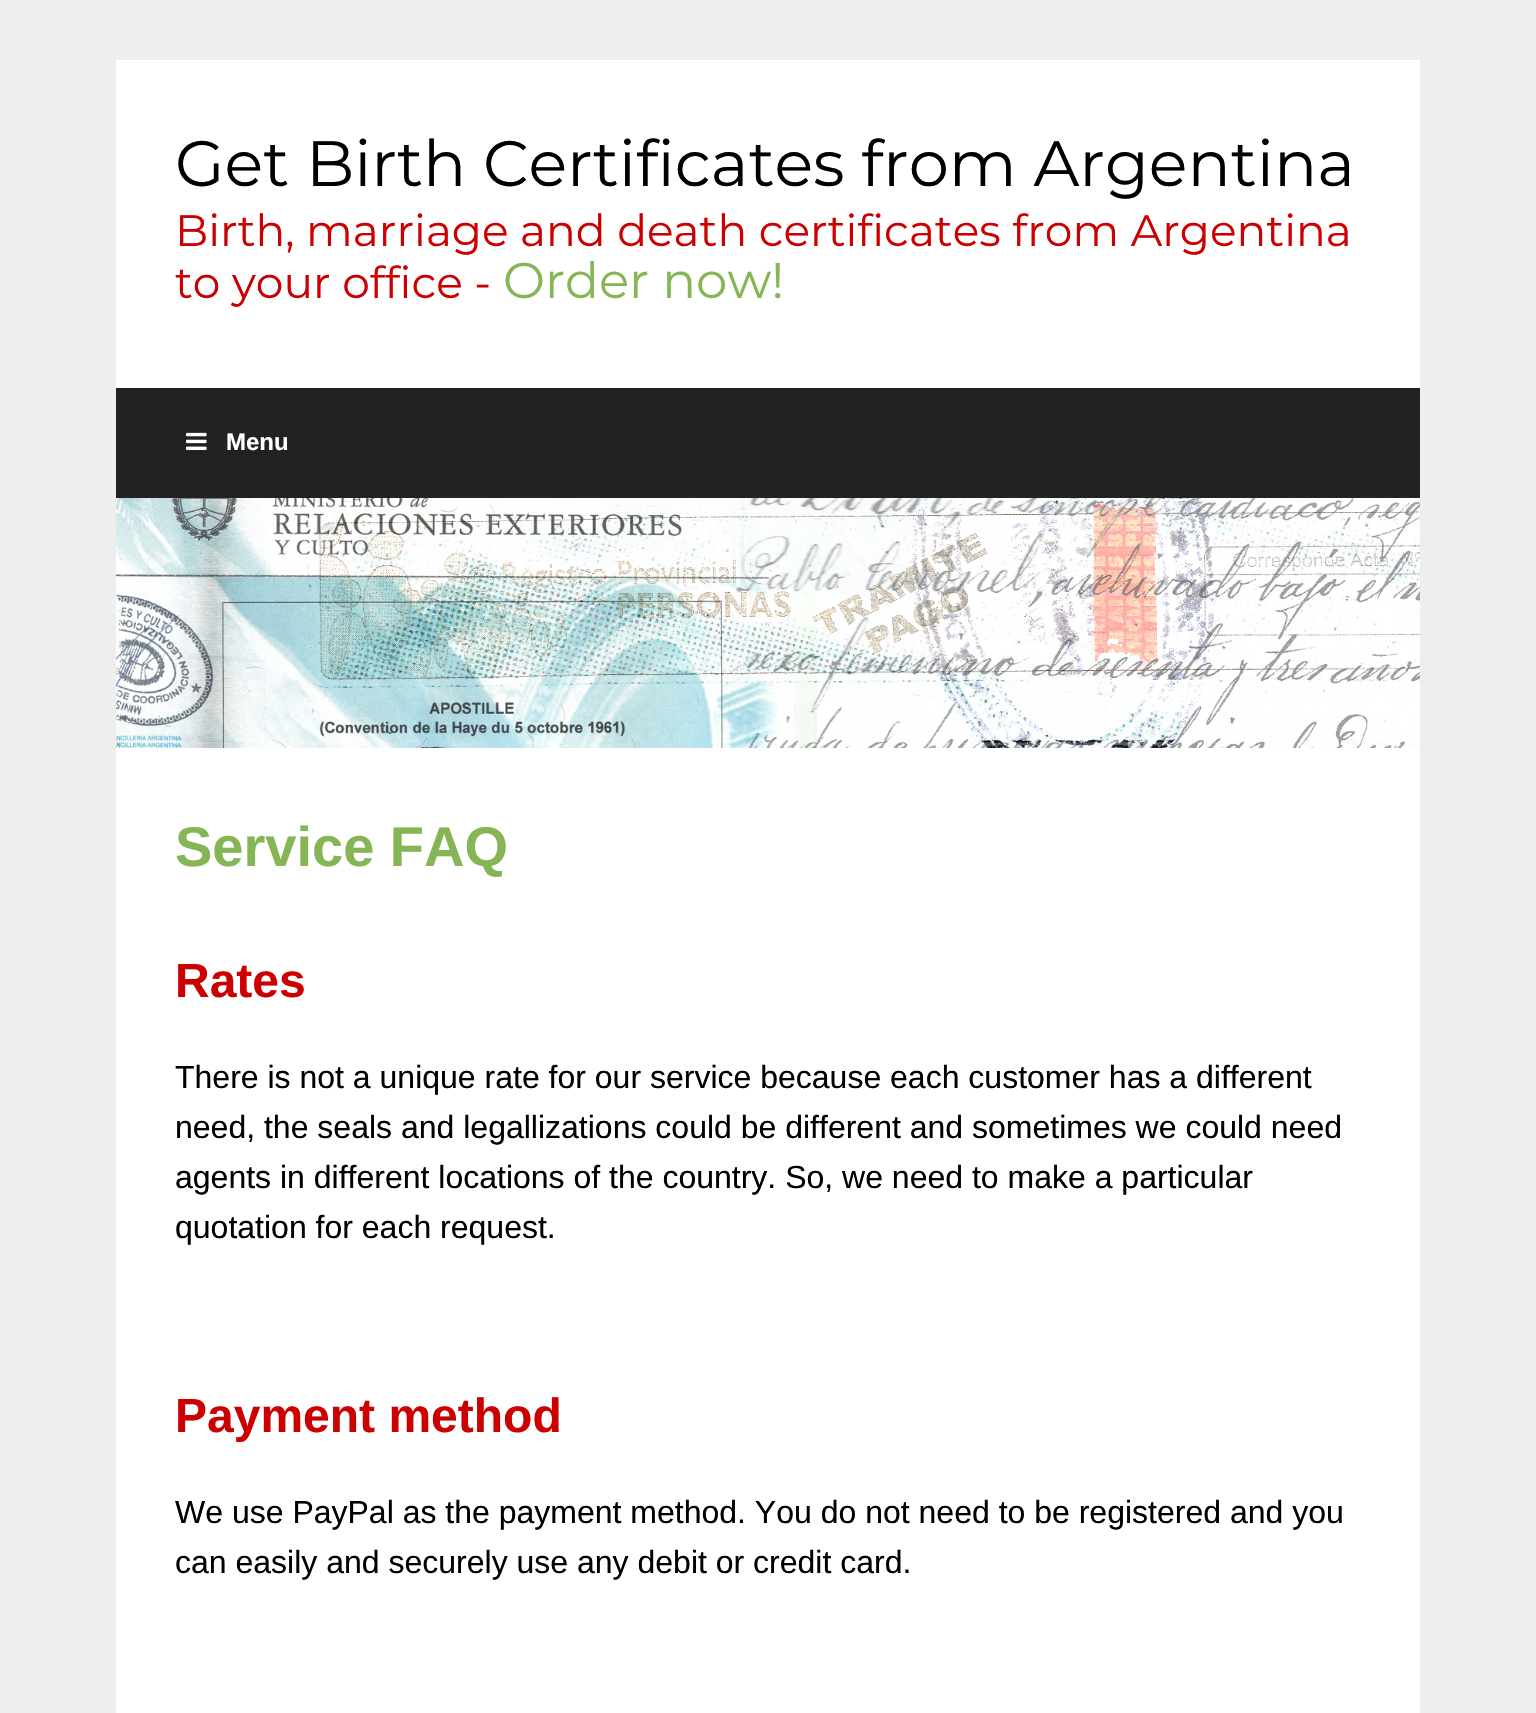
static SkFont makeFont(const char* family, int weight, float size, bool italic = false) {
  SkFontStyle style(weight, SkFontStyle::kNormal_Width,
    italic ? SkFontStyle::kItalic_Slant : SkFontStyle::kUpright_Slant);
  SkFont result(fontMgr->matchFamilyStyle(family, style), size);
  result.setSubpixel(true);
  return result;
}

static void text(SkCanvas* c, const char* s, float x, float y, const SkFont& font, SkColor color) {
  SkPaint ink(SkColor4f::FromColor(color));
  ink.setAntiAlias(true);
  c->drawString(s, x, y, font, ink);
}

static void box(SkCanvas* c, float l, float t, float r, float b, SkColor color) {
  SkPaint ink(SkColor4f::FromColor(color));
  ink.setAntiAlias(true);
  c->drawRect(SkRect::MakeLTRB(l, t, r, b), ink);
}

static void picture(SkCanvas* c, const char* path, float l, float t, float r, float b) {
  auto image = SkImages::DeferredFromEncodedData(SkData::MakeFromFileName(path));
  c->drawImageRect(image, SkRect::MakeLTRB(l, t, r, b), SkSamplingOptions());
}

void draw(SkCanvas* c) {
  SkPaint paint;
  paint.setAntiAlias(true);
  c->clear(0xffeeeeee);
  box(c, 116, 60, 1420, 1713, 0xffffffff);
  SkFont face1 = makeFont("Montserrat", 400, 64);
  text(c, "Get Birth Certificates from Argentina", 175, 186, face1, 0xff000000);
  SkFont face2 = makeFont("Montserrat", 400, 44);
  text(c, "Birth, marriage and death certificates from Argentina", 175, 246, face2, 0xffcc0000);
  text(c, "to your office -", 175, 298, face2, 0xffcc0000);
  SkFont face3 = makeFont("Montserrat", 400, 50);
  text(c, "Order now!", 503, 298, face3, 0xff86b556);
  box(c, 116, 388, 1420, 498, 0xff222222);
  picture(c, "img_01.png", 186, 432, 207, 450);
  SkFont face4 = makeFont("Liberation Sans", 700, 24);
  text(c, "Menu", 226, 450, face4, 0xffffffff);
  picture(c, "img_02.png", 116, 498, 1420, 748);
  SkFont face5 = makeFont("Liberation Sans", 700, 56);
  text(c, "Service FAQ", 175, 866, face5, 0xff86b556);
  SkFont face6 = makeFont("Liberation Sans", 700, 48);
  text(c, "Rates", 175, 997, face6, 0xffcc0000);
  SkFont face7 = makeFont("Liberation Sans", 400, 32);
  text(c, "There is not a unique rate for our service because each customer has a different", 175, 1088, face7, 0xff000000);
  text(c, "need, the seals and legallizations could be different and sometimes we could need", 175, 1138, face7, 0xff000000);
  text(c, "agents in different locations of the country. So, we need to make a particular", 175, 1188, face7, 0xff000000);
  text(c, "quotation for each request.", 175, 1238, face7, 0xff000000);
  text(c, "Payment method", 175, 1432, face6, 0xffcc0000);
  text(c, "We use PayPal as the payment method. You do not need to be registered and you", 175, 1523, face7, 0xff000000);
  text(c, "can easily and securely use any debit or credit card.", 175, 1573, face7, 0xff000000);
}
